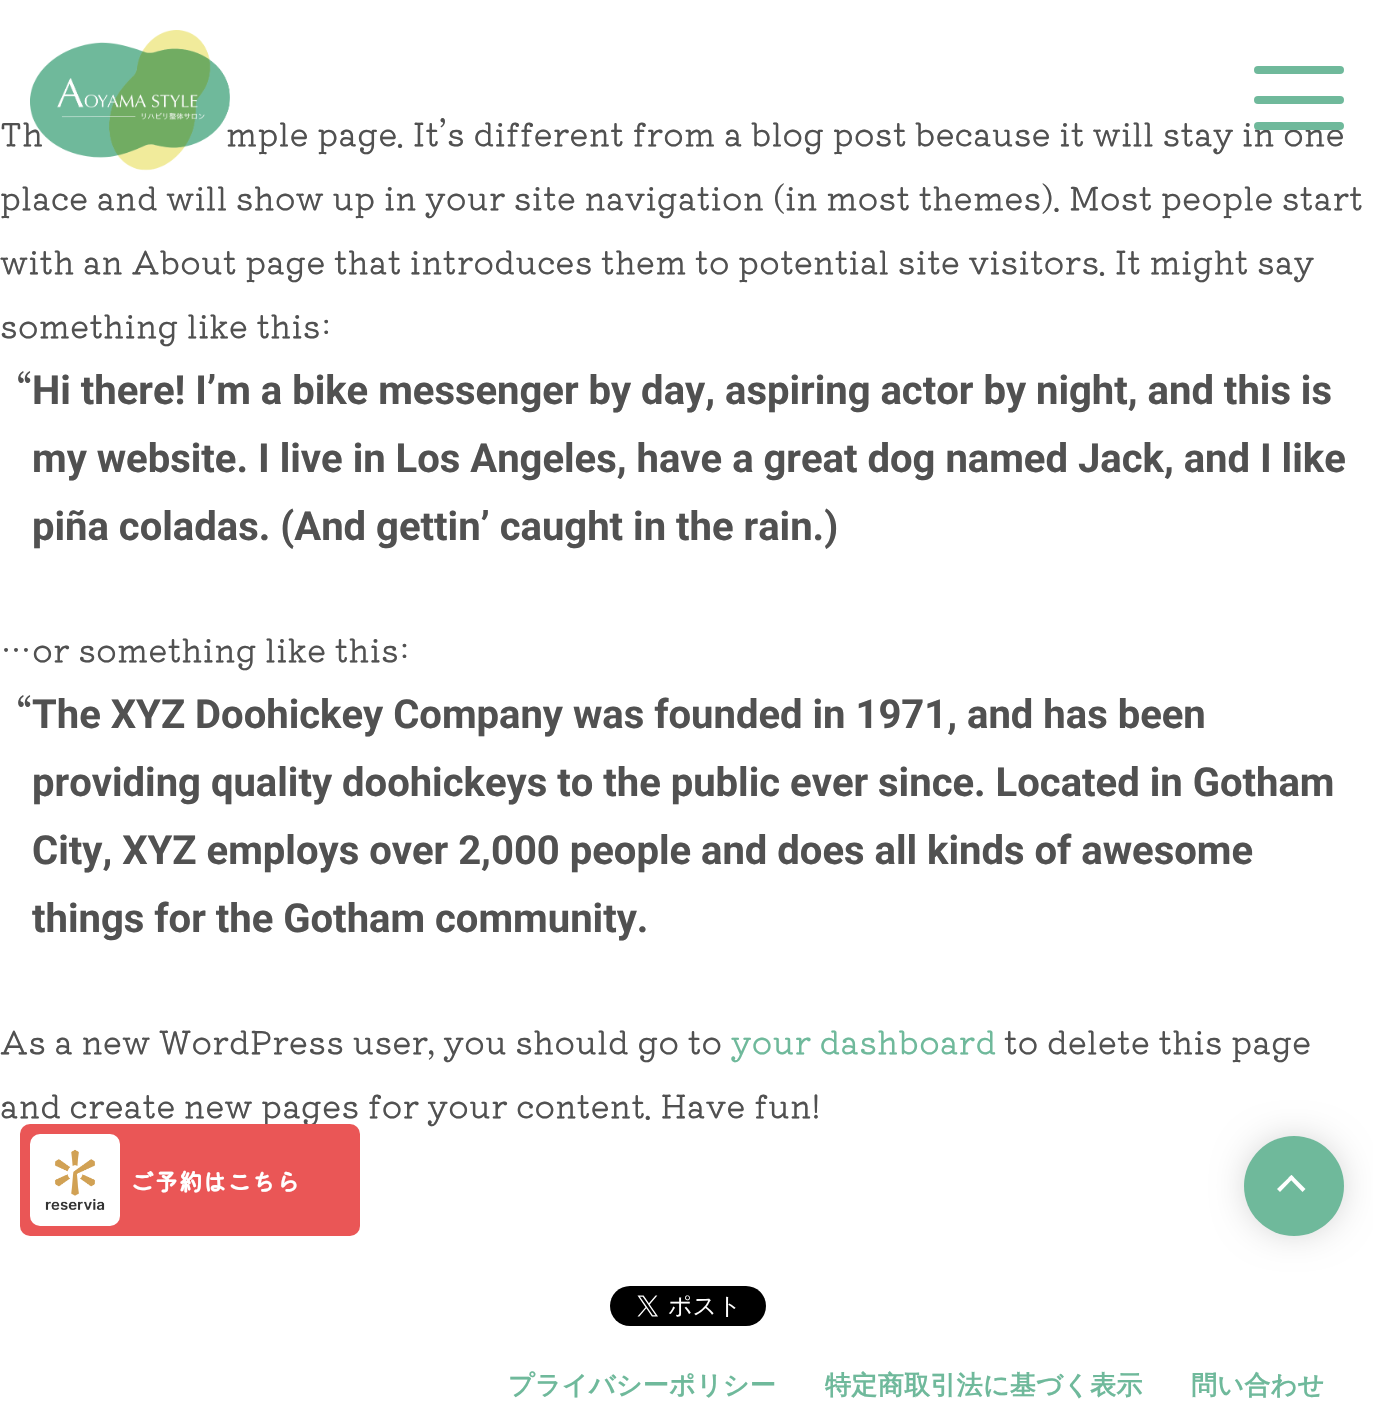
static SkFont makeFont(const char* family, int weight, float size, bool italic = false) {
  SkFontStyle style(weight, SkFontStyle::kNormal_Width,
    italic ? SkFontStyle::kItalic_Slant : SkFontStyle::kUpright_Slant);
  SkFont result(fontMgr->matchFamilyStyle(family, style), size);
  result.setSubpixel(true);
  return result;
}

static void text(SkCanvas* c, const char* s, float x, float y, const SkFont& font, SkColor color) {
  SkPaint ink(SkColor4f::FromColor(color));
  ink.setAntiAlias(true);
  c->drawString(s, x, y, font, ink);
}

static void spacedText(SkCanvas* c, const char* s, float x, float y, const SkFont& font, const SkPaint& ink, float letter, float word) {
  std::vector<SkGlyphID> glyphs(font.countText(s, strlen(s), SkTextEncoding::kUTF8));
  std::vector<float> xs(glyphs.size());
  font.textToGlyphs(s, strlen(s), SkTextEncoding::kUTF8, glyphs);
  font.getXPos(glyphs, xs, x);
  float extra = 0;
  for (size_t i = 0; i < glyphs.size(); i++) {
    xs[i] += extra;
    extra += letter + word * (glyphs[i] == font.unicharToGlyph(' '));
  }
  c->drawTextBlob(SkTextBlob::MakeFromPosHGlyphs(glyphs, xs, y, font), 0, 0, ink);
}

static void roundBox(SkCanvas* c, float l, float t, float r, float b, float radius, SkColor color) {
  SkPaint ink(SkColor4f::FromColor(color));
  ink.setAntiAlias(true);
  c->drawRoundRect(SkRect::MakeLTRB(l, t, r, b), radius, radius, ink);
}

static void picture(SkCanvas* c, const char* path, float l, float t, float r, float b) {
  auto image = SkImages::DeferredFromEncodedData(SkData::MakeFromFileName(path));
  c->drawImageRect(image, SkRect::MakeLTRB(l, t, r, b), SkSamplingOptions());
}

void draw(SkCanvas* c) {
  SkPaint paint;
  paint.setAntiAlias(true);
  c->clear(0xffffffff);
  SkFont face1 = makeFont("Kiwi Maru", 400, 32);
  paint.setColor(0xff515151);
  spacedText(c, "Th", 0, 146, face1, paint, 0.32f, 0);
  spacedText(c, "mple page. It’s different from a blog post because it will stay in one", 226, 146, face1, paint, 0.32f, 0);
  picture(c, "img_01.png", 30, 30, 230, 171);
  roundBox(c, 1254, 66, 1344, 74, 4, 0xff6fb99b);
  roundBox(c, 1254, 96, 1344, 104, 4, 0xff6fb99b);
  roundBox(c, 1254, 122, 1344, 130, 4, 0xff6fb99b);
  spacedText(c, "place and will show up in your site navigation (in most themes). Most people start", 0, 210, face1, paint, 0.32f, 0);
  spacedText(c, "with an About page that introduces them to potential site visitors. It might say", 0, 274, face1, paint, 0.32f, 0);
  spacedText(c, "something like this:", 0, 338, face1, paint, 0.32f, 0);
  SkFont face2 = makeFont("Kiwi Maru", 400, 40);
  spacedText(c, "“", 16, 406, face2, paint, 0.32f, 0);
  SkFont face3 = makeFont("Roboto", 700, 40);
  text(c, "Hi there! I’m a bike messenger by day, aspiring actor by night, and this is", 32, 404, face3, 0xff515151);
  text(c, "my website. I live in Los Angeles, have a great dog named Jack, and I like", 32, 472, face3, 0xff515151);
  text(c, "piña coladas. (And gettin’ caught in the rain.)", 32, 540, face3, 0xff515151);
  spacedText(c, "…or something like this:", 0, 662, face1, paint, 0.32f, 0);
  spacedText(c, "“", 16, 730, face2, paint, 0.32f, 0);
  text(c, "The XYZ Doohickey Company was founded in 1971, and has been", 32, 728, face3, 0xff515151);
  text(c, "providing quality doohickeys to the public ever since. Located in Gotham", 32, 796, face3, 0xff515151);
  text(c, "City, XYZ employs over 2,000 people and does all kinds of awesome", 32, 864, face3, 0xff515151);
  text(c, "things for the Gotham community.", 32, 932, face3, 0xff515151);
  spacedText(c, "As a new WordPress user, you should go to", 0, 1054, face1, paint, 0.32f, 0);
  paint.setColor(0xff6fb99b);
  spacedText(c, "your dashboard", 731, 1054, face1, paint, 0.32f, 0);
  paint.setColor(0xff515151);
  spacedText(c, "to delete this page", 1004, 1054, face1, paint, 0.32f, 0);
  spacedText(c, "and create new pages for your content. Have fun!", 0, 1118, face1, paint, 0.32f, 0);
  roundBox(c, 20, 1124, 360, 1236, 10, 0xffea5656);
  roundBox(c, 30, 1134, 120, 1226, 10, 0xffffffff);
  picture(c, "img_02.png", 45, 1149, 105, 1210);
  SkFont face4 = makeFont("Kiwi Maru", 700, 24);
  paint.setColor(0xffffffff);
  spacedText(c, "ご予約はこちら", 130, 1191, face4, paint, 0.32f, 0);
  paint.setColor(0x4d000000);
  paint.setMaskFilter(SkMaskFilter::MakeBlur(kNormal_SkBlurStyle, 20));
  c->drawRoundRect(SkRect::MakeLTRB(1254, 1146, 1334, 1226), 40, 40, paint);
  paint.setMaskFilter(nullptr);
  paint.setColor(0xff6fb99b);
  c->drawCircle(1294, 1186, 50, paint);
  paint.setColor(0xffffffff);
  c->drawPath(SkPathBuilder().moveTo(1277, 1189).lineTo(1291.5f, 1175).lineTo(1294, 1177.5f).lineTo(1280, 1192).close().detach(), paint);
  c->drawPath(SkPathBuilder().moveTo(1288.5f, 1177.5f).lineTo(1291.5f, 1175).lineTo(1305.5f, 1189).lineTo(1302.5f, 1192).close().detach(), paint);
  picture(c, "img_03.png", 610, 1286, 766, 1326);
  SkFont face5 = makeFont("WenQuanYi Zen Hei", 700, 26);
  paint.setColor(0xff6fb99b);
  spacedText(c, "プライバシーポリシー", 508, 1394, face5, paint, 0.32f, 0);
  spacedText(c, "特定商取引法に基づく表示", 825, 1394, face5, paint, 0.32f, 0);
  spacedText(c, "問い合わせ", 1191, 1394, face5, paint, 0.32f, 0);
}
